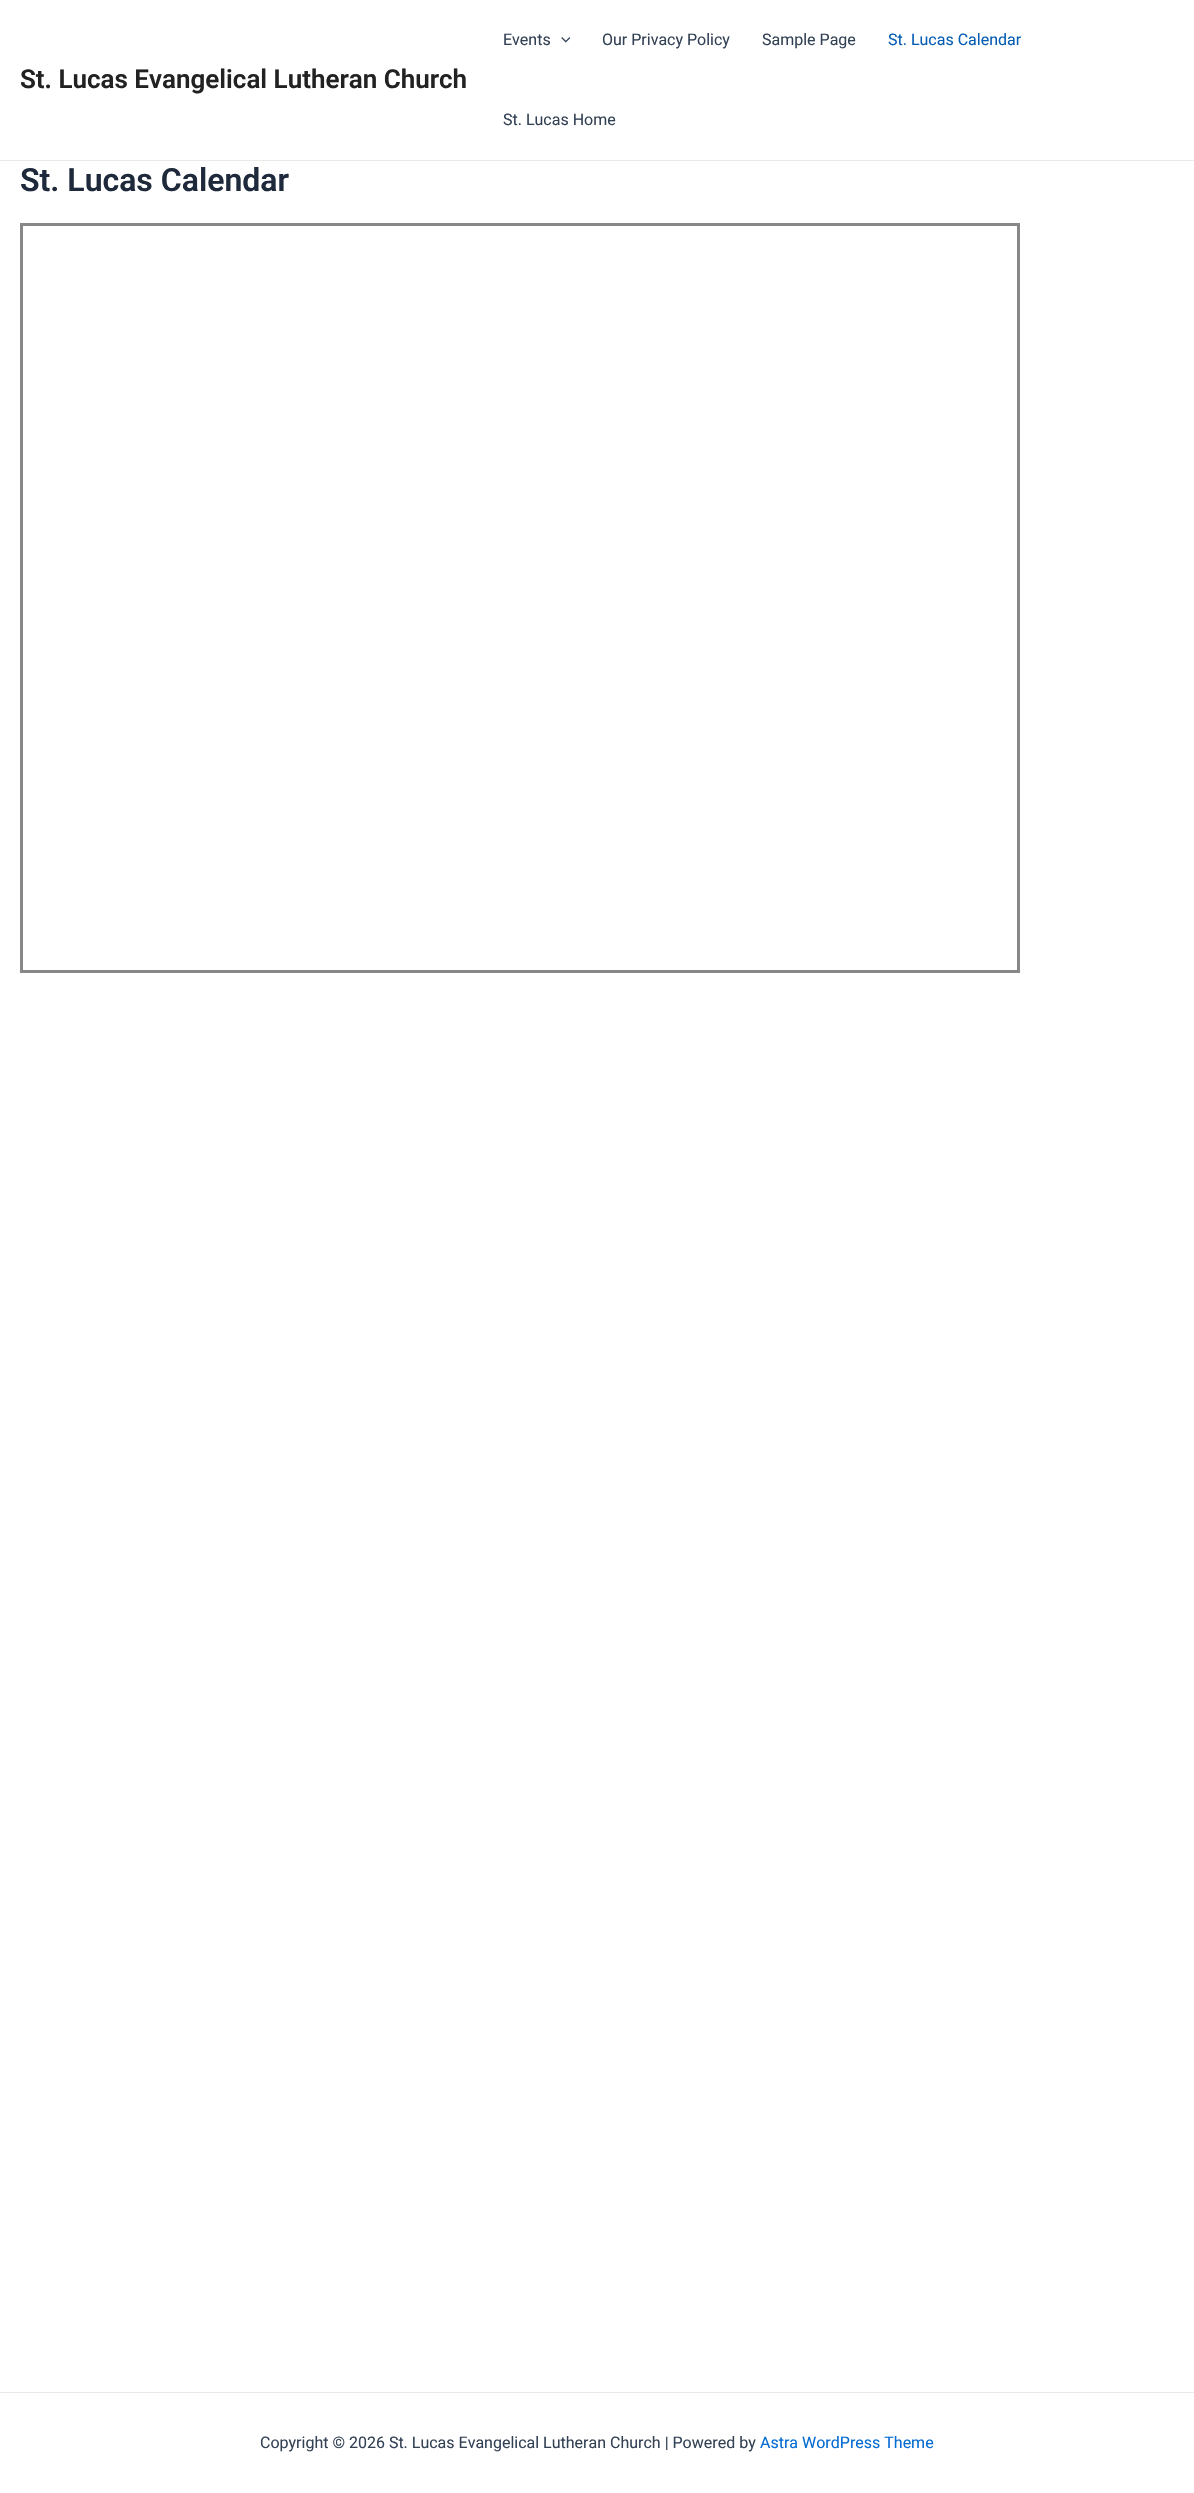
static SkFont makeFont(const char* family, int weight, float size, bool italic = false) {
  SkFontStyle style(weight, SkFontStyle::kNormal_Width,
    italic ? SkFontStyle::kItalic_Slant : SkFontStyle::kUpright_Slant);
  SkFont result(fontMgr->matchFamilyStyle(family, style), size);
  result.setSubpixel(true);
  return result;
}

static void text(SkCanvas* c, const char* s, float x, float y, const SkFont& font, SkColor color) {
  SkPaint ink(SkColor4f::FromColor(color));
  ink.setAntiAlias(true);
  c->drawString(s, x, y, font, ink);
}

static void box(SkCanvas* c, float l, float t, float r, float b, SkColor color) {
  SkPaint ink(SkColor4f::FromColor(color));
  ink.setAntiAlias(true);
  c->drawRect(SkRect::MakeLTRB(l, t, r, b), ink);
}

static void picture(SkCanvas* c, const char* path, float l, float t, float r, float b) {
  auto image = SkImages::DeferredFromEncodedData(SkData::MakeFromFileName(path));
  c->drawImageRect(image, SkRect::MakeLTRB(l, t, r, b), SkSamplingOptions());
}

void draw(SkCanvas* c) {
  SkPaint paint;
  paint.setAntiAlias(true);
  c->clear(0xffffffff);
  box(c, 0, 160, 1194, 161, 0xffeaeaea);
  SkFont face1 = makeFont("Roboto", 600, 26);
  text(c, "St. Lucas Evangelical Lutheran Church", 20, 88, face1, 0xff222222);
  SkFont face2 = makeFont("Roboto", 400, 16);
  text(c, "Events", 503, 45, face2, 0xff334155);
  picture(c, "img_01.png", 561, 37, 570, 43);
  text(c, "Our Privacy Policy", 602, 45, face2, 0xff334155);
  text(c, "Sample Page", 762, 45, face2, 0xff334155);
  text(c, "St. Lucas Calendar", 888, 45, face2, 0xff045cb4);
  text(c, "St. Lucas Home", 503, 125, face2, 0xff334155);
  SkFont face3 = makeFont("Roboto", 600, 32);
  text(c, "St. Lucas Calendar", 20, 191, face3, 0xff1e293b);
  paint.setStyle(SkPaint::kStroke_Style);
  paint.setStrokeWidth(3);
  paint.setColor(0xff888888);
  c->drawRect(SkRect::MakeLTRB(21.5f, 224.5f, 1018.5f, 971.5f), paint);
  box(c, 0, 2392, 1194, 2393, 0xffeaeaea);
  text(c, "Copyright © 2026 St. Lucas Evangelical Lutheran Church | Powered by", 260, 2448, face2, 0xff334155);
  text(c, "Astra WordPress Theme", 760, 2448, face2, 0xff046bd2);
}
